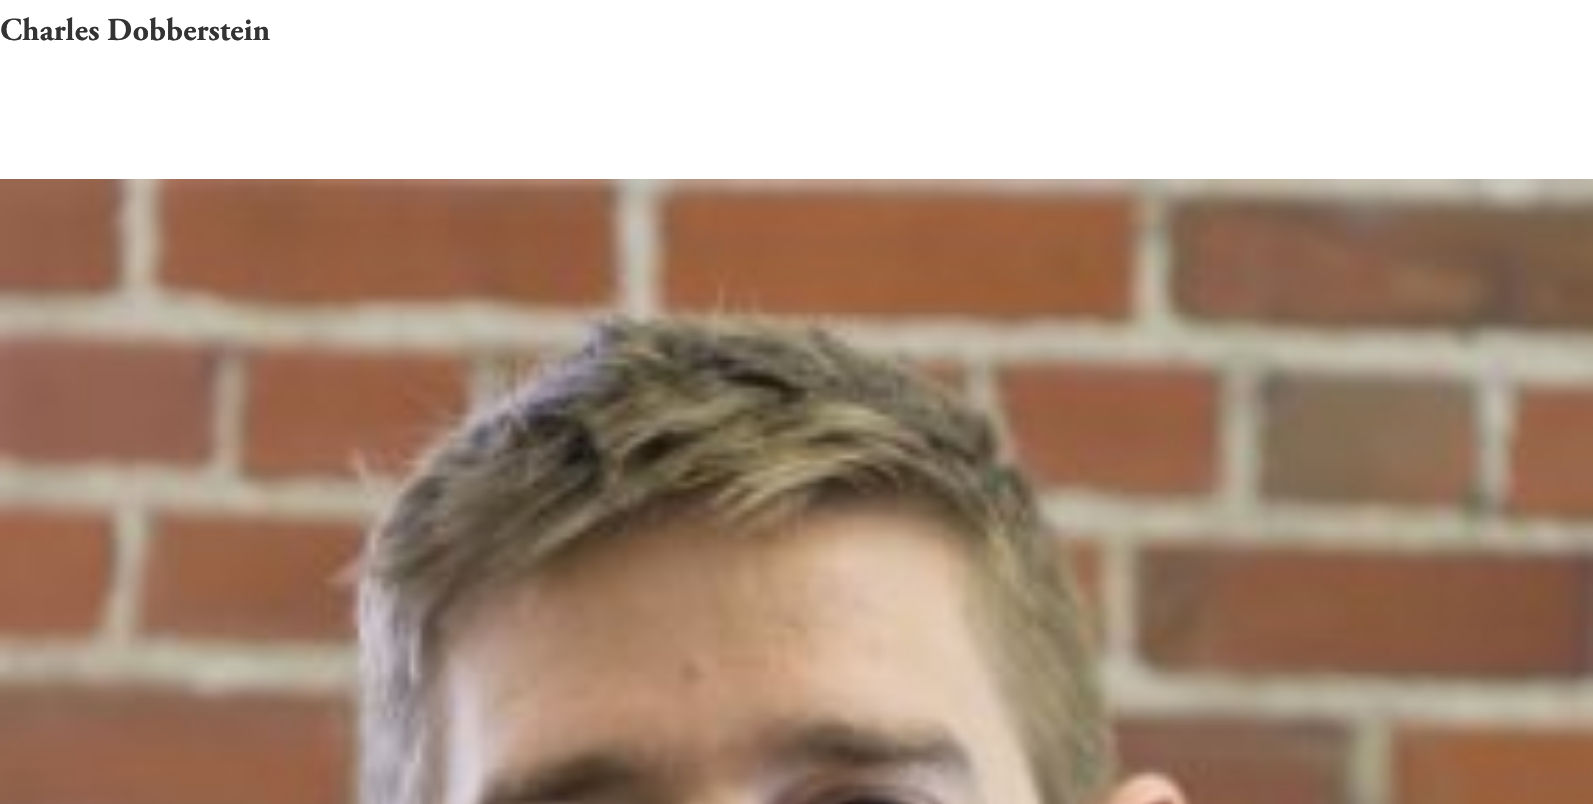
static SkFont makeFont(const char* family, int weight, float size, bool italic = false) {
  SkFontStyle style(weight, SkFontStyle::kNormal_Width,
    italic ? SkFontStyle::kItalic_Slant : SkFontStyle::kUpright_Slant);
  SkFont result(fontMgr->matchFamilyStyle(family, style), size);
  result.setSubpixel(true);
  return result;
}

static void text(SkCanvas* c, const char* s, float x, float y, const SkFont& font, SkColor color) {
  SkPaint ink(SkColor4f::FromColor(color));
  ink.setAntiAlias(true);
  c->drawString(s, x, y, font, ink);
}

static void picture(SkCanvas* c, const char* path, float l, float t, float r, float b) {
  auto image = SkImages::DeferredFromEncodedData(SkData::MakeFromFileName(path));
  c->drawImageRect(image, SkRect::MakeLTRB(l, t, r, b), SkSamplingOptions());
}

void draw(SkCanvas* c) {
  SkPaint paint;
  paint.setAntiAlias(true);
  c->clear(0xffffffff);
  SkFont face1 = makeFont("Adobe Garamond", 700, 32);
  text(c, "Charles Dobberstein", 0, 40, face1, 0xff333333);
  picture(c, "img_01.png", 0, 179, 1593, 804);
}
